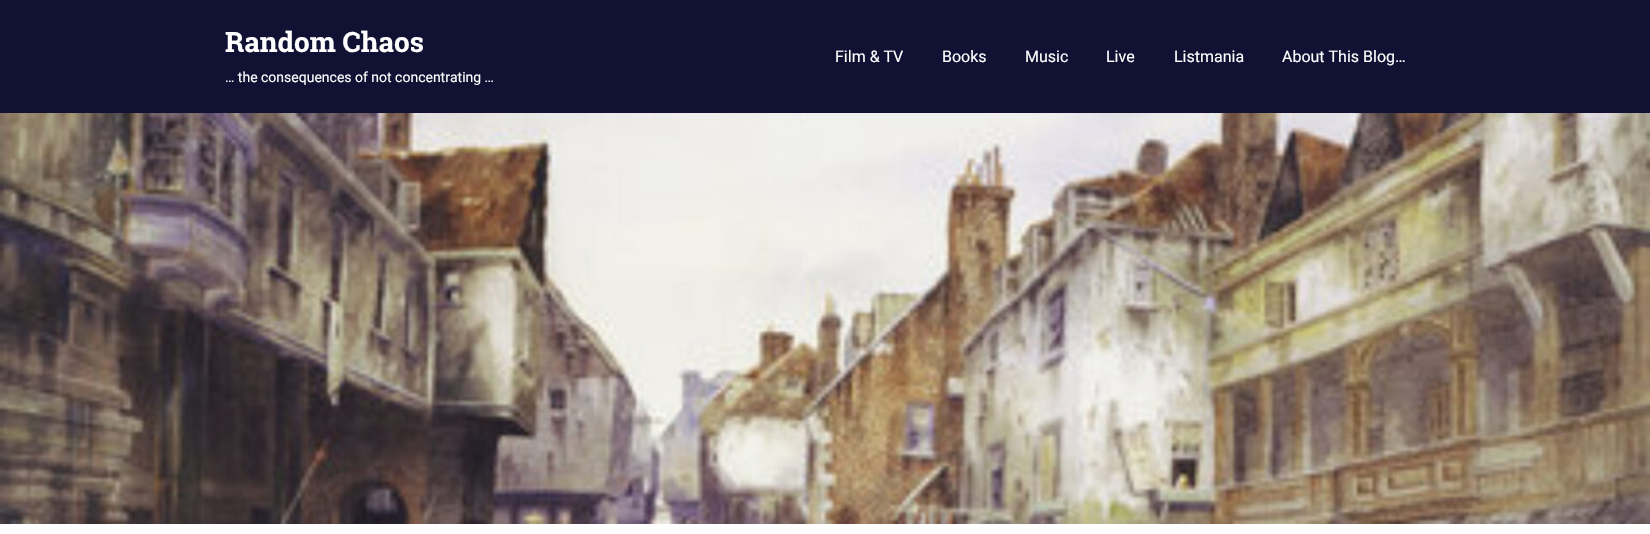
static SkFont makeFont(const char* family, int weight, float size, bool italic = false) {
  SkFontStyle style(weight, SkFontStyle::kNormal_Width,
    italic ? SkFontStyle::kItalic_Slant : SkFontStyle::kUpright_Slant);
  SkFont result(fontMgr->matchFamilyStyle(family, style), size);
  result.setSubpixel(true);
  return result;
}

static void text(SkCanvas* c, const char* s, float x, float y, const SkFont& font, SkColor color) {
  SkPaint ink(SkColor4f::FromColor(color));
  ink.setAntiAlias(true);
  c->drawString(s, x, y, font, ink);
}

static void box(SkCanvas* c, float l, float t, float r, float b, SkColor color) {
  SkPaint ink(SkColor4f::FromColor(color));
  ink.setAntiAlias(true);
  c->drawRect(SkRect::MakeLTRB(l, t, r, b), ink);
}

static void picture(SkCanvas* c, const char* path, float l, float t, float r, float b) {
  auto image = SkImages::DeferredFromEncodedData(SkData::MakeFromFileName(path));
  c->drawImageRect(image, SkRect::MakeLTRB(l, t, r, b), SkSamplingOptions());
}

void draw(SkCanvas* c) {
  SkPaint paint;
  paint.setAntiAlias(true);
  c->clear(0xffffffff);
  box(c, 0, 0, 1650, 113, 0xff111133);
  SkFont face1 = makeFont("Roboto Slab", 700, 28);
  text(c, "Random Chaos", 225, 52, face1, 0xffffffff);
  SkFont face2 = makeFont("Roboto", 400, 14);
  text(c, "… the consequences of not concentrating …", 225, 82, face2, 0xffffffff);
  SkFont face3 = makeFont("Roboto", 400, 16);
  text(c, "Film & TV", 835, 62, face3, 0xffffffff);
  text(c, "Books", 942, 62, face3, 0xffffffff);
  text(c, "Music", 1025, 62, face3, 0xffffffff);
  text(c, "Live", 1106, 62, face3, 0xffffffff);
  text(c, "Listmania", 1174, 62, face3, 0xffffffff);
  text(c, "About This Blog…", 1282, 62, face3, 0xffffffff);
  picture(c, "img_01.png", 0, 113, 1650, 524);
}
